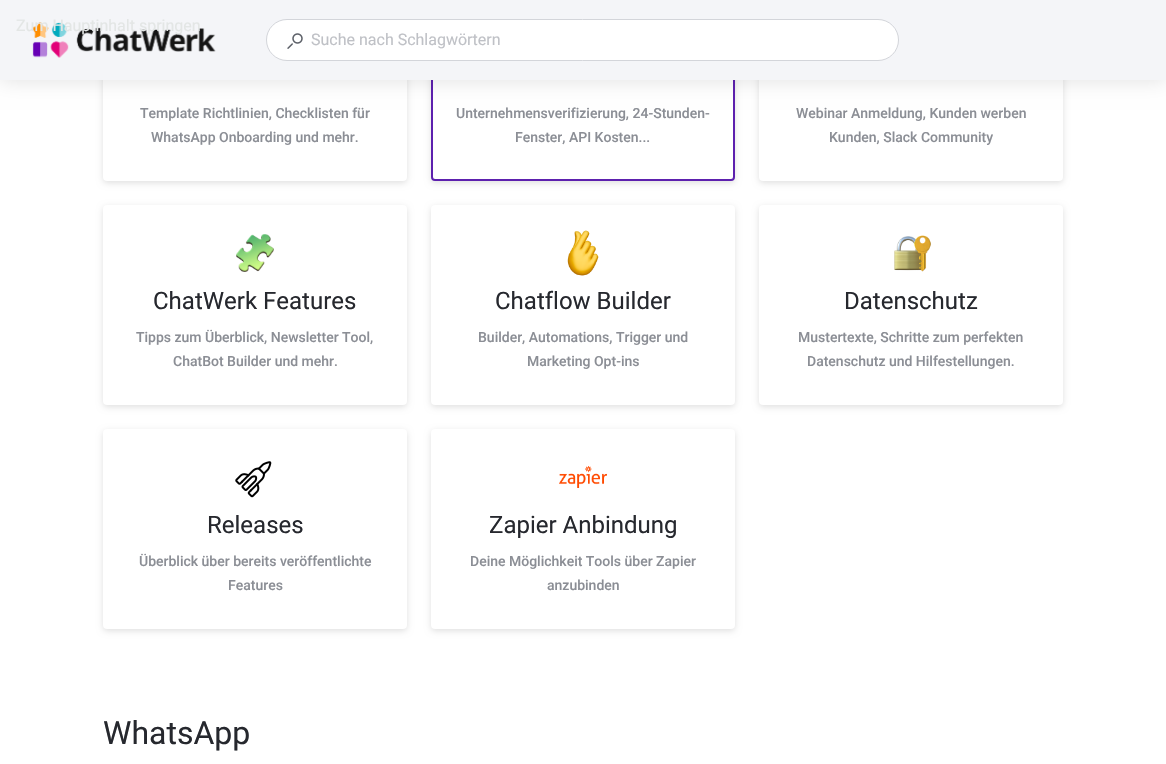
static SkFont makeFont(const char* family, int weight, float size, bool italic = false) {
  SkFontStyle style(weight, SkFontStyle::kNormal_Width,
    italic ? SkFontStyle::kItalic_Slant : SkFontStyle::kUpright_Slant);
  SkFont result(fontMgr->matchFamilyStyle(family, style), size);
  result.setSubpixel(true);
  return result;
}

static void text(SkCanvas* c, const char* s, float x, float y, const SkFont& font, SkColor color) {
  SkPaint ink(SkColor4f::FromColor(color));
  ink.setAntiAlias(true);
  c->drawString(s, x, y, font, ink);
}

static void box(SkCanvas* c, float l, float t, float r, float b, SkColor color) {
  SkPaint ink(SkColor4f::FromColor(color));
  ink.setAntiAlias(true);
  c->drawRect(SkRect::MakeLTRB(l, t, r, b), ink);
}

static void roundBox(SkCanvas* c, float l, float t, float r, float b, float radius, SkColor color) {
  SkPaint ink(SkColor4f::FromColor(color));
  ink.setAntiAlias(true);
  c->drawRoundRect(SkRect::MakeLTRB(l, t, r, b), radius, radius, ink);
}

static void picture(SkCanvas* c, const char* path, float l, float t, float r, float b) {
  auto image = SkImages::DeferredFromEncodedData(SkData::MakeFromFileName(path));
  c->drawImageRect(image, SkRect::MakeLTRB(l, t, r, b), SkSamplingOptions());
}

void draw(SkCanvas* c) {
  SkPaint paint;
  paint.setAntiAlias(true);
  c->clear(0xffffffff);
  paint.setColor(0x1f000000);
  paint.setMaskFilter(SkMaskFilter::MakeBlur(kNormal_SkBlurStyle, 3));
  c->drawRoundRect(SkRect::MakeLTRB(103, -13, 407, 183), 4, 4, paint);
  paint.setMaskFilter(nullptr);
  roundBox(c, 103, -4, 407, 181, 4, 0xffffffff);
  paint.setMaskFilter(SkMaskFilter::MakeBlur(kNormal_SkBlurStyle, 3));
  c->drawRoundRect(SkRect::MakeLTRB(431, -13, 735, 183), 4, 4, paint);
  paint.setMaskFilter(nullptr);
  paint.setColor(0xffffffff);
  c->drawRoundRect(SkRect::MakeLTRB(432, -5, 734, 180), 3, 3, paint);
  paint.setStyle(SkPaint::kStroke_Style);
  paint.setStrokeWidth(2);
  paint.setColor(0xff5d20ae);
  c->drawRoundRect(SkRect::MakeLTRB(432, -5, 734, 180), 3, 3, paint);
  paint.setStyle(SkPaint::kFill_Style);
  paint.setColor(0x1f000000);
  paint.setMaskFilter(SkMaskFilter::MakeBlur(kNormal_SkBlurStyle, 3));
  c->drawRoundRect(SkRect::MakeLTRB(759, -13, 1063, 183), 4, 4, paint);
  paint.setMaskFilter(nullptr);
  roundBox(c, 759, -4, 1063, 181, 4, 0xffffffff);
  paint.setMaskFilter(SkMaskFilter::MakeBlur(kNormal_SkBlurStyle, 10));
  c->drawRect(SkRect::MakeLTRB(0, 0, 1166, 80), paint);
  paint.setMaskFilter(nullptr);
  box(c, 0, 0, 1166, 80, 0xfff4f5f8);
  picture(c, "img_01.png", 32, 22, 216, 58);
  SkFont face1 = makeFont("Roboto", 400, 16);
  text(c, "Zum Hauptinhalt springen", 16, 31, face1, 0xffe3e6e5);
  paint.setColor(0xffffffff);
  c->drawRoundRect(SkRect::MakeLTRB(266.5f, 19.5f, 898.5f, 60.5f), 20.5f, 20.5f, paint);
  paint.setStyle(SkPaint::kStroke_Style);
  paint.setStrokeWidth(1);
  paint.setColor(0xffd3d5da);
  c->drawRoundRect(SkRect::MakeLTRB(266.5f, 19.5f, 898.5f, 60.5f), 20.5f, 20.5f, paint);
  picture(c, "img_02.png", 287, 33, 303, 49);
  text(c, "Suche nach Schlagwörtern", 311, 45, face1, 0xffbfc1c6);
  SkFont face2 = makeFont("Roboto", 500, 14);
  text(c, "Template Richtlinien, Checklisten für", 140, 118, face2, 0xff8b8e95);
  text(c, "WhatsApp Onboarding und mehr.", 151, 142, face2, 0xff8b8e95);
  text(c, "Unternehmensverifizierung, 24-Stunden-", 456, 118, face2, 0xff8b8e95);
  text(c, "Fenster, API Kosten...", 515, 142, face2, 0xff8b8e95);
  text(c, "Webinar Anmeldung, Kunden werben", 796, 118, face2, 0xff8b8e95);
  text(c, "Kunden, Slack Community", 829, 142, face2, 0xff8b8e95);
  paint.setStyle(SkPaint::kFill_Style);
  paint.setColor(0x1f000000);
  paint.setMaskFilter(SkMaskFilter::MakeBlur(kNormal_SkBlurStyle, 3));
  c->drawRoundRect(SkRect::MakeLTRB(103, 207, 407, 407), 4, 4, paint);
  paint.setMaskFilter(nullptr);
  roundBox(c, 103, 205, 407, 405, 4, 0xffffffff);
  picture(c, "img_03.png", 236, 234, 274, 272);
  SkFont face3 = makeFont("Roboto", 400, 24);
  text(c, "ChatWerk Features", 153, 309, face3, 0xff26282e);
  text(c, "Tipps zum Überblick, Newsletter Tool,", 136, 342, face2, 0xff8b8e95);
  text(c, "ChatBot Builder und mehr.", 173, 366, face2, 0xff8b8e95);
  paint.setMaskFilter(SkMaskFilter::MakeBlur(kNormal_SkBlurStyle, 3));
  c->drawRoundRect(SkRect::MakeLTRB(431, 207, 735, 407), 4, 4, paint);
  paint.setMaskFilter(nullptr);
  roundBox(c, 431, 205, 735, 405, 4, 0xffffffff);
  picture(c, "img_04.png", 567, 230, 599, 276);
  text(c, "Chatflow Builder", 495, 309, face3, 0xff26282e);
  text(c, "Builder, Automations, Trigger und", 478, 342, face2, 0xff8b8e95);
  text(c, "Marketing Opt-ins", 527, 366, face2, 0xff8b8e95);
  paint.setMaskFilter(SkMaskFilter::MakeBlur(kNormal_SkBlurStyle, 3));
  c->drawRoundRect(SkRect::MakeLTRB(759, 207, 1063, 407), 4, 4, paint);
  paint.setMaskFilter(nullptr);
  roundBox(c, 759, 205, 1063, 405, 4, 0xffffffff);
  picture(c, "img_05.png", 894, 235, 931, 272);
  text(c, "Datenschutz", 844, 309, face3, 0xff26282e);
  text(c, "Mustertexte, Schritte zum perfekten", 798, 342, face2, 0xff8b8e95);
  text(c, "Datenschutz und Hilfestellungen.", 807, 366, face2, 0xff8b8e95);
  paint.setMaskFilter(SkMaskFilter::MakeBlur(kNormal_SkBlurStyle, 3));
  c->drawRoundRect(SkRect::MakeLTRB(103, 431, 407, 631), 4, 4, paint);
  paint.setMaskFilter(nullptr);
  roundBox(c, 103, 429, 407, 629, 4, 0xffffffff);
  picture(c, "img_06.png", 235, 461, 272, 498);
  text(c, "Releases", 207, 533, face3, 0xff26282e);
  text(c, "Überblick über bereits veröffentlichte", 139, 566, face2, 0xff8b8e95);
  text(c, "Features", 228, 590, face2, 0xff8b8e95);
  paint.setMaskFilter(SkMaskFilter::MakeBlur(kNormal_SkBlurStyle, 3));
  c->drawRoundRect(SkRect::MakeLTRB(431, 431, 735, 631), 4, 4, paint);
  paint.setMaskFilter(nullptr);
  roundBox(c, 431, 429, 735, 629, 4, 0xffffffff);
  picture(c, "img_07.png", 559, 466, 607, 488);
  text(c, "Zapier Anbindung", 489, 533, face3, 0xff26282e);
  text(c, "Deine Möglichkeit Tools über Zapier", 470, 566, face2, 0xff8b8e95);
  text(c, "anzubinden", 547, 590, face2, 0xff8b8e95);
  SkFont face4 = makeFont("Roboto", 400, 32);
  text(c, "WhatsApp", 103, 744, face4, 0xff26282e);
}
